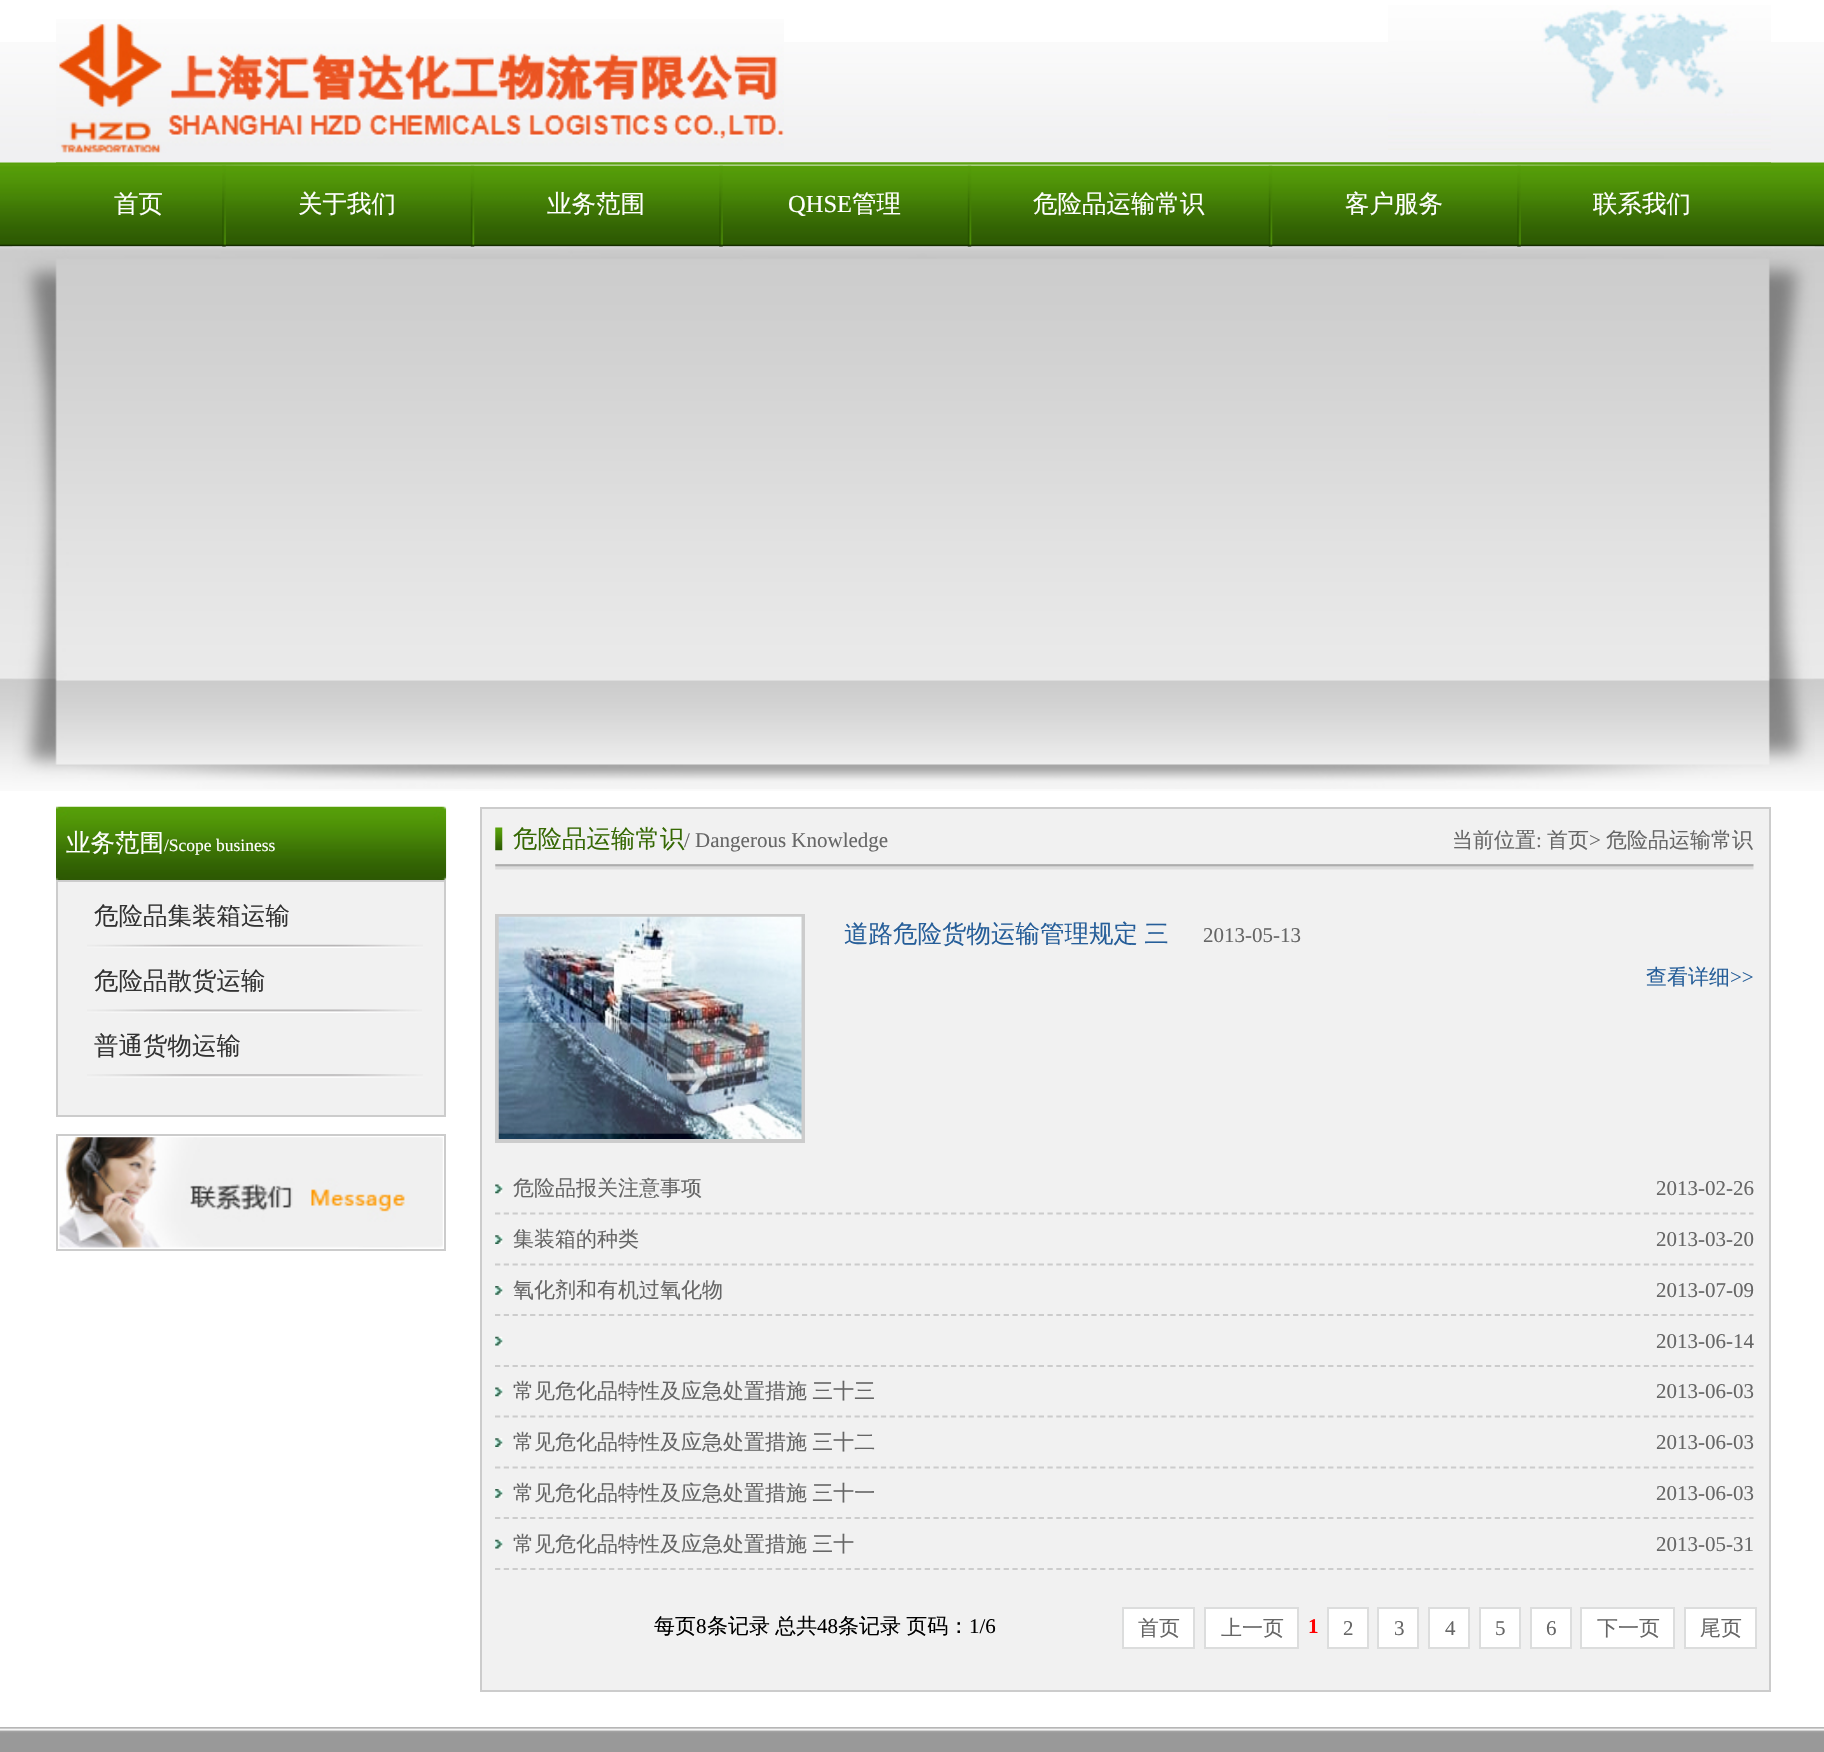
static SkFont makeFont(const char* family, int weight, float size, bool italic = false) {
  SkFontStyle style(weight, SkFontStyle::kNormal_Width,
    italic ? SkFontStyle::kItalic_Slant : SkFontStyle::kUpright_Slant);
  SkFont result(fontMgr->matchFamilyStyle(family, style), size);
  result.setSubpixel(true);
  return result;
}

static void text(SkCanvas* c, const char* s, float x, float y, const SkFont& font, SkColor color) {
  SkPaint ink(SkColor4f::FromColor(color));
  ink.setAntiAlias(true);
  c->drawString(s, x, y, font, ink);
}

static void spacedText(SkCanvas* c, const char* s, float x, float y, const SkFont& font, const SkPaint& ink, float letter, float word) {
  std::vector<SkGlyphID> glyphs(font.countText(s, strlen(s), SkTextEncoding::kUTF8));
  std::vector<float> xs(glyphs.size());
  font.textToGlyphs(s, strlen(s), SkTextEncoding::kUTF8, glyphs);
  font.getXPos(glyphs, xs, x);
  float extra = 0;
  for (size_t i = 0; i < glyphs.size(); i++) {
    xs[i] += extra;
    extra += letter + word * (glyphs[i] == font.unicharToGlyph(' '));
  }
  c->drawTextBlob(SkTextBlob::MakeFromPosHGlyphs(glyphs, xs, y, font), 0, 0, ink);
}

static void picture(SkCanvas* c, const char* path, float l, float t, float r, float b) {
  auto image = SkImages::DeferredFromEncodedData(SkData::MakeFromFileName(path));
  c->drawImageRect(image, SkRect::MakeLTRB(l, t, r, b), SkSamplingOptions());
}

void draw(SkCanvas* c) {
  SkPaint paint;
  paint.setAntiAlias(true);
  c->clear(0xffffffff);
  picture(c, "img_01.png", 0, 42, 1824, 163);
  picture(c, "img_02.png", 1388, 5, 1771, 150);
  picture(c, "img_03.png", 56, 19, 784, 153);
  picture(c, "img_04.png", 0, 162, 1824, 247);
  picture(c, "img_05.png", 56, 162, 1771, 166);
  picture(c, "img_11.png", 0, 246, 1824, 791);
  picture(c, "img_12.png", 12, 246, 1815, 789);
  picture(c, "img_06.png", 222, 165, 226, 247);
  SkFont face1 = makeFont("WenQuanYi Zen Hei", 500, 24.5f);
  text(c, "首页", 114, 212, face1, 0xffffffff);
  picture(c, "img_07.png", 470, 165, 475, 247);
  text(c, "关于我们", 298, 212, face1, 0xffffffff);
  picture(c, "img_08.png", 719, 165, 723, 247);
  text(c, "业务范围", 547, 212, face1, 0xffffffff);
  picture(c, "img_09.png", 967, 165, 972, 247);
  SkFont face2 = makeFont("Liberation Serif", 400, 24.5f);
  text(c, "QHSE", 788, 212, face2, 0xffffffff);
  text(c, "管理", 852, 212, face1, 0xffffffff);
  picture(c, "img_09.png", 1268, 165, 1273, 247);
  text(c, "危险品运输常识", 1033, 212, face1, 0xffffffff);
  picture(c, "img_10.png", 1517, 165, 1521, 247);
  text(c, "客户服务", 1345, 212, face1, 0xffffffff);
  text(c, "联系我们", 1593, 212, face1, 0xffffffff);
  picture(c, "img_13.png", 56, 806, 447, 880);
  text(c, "业务范围", 66, 851, face1, 0xffffffff);
  SkFont face3 = makeFont("Liberation Serif", 400, 17.5f);
  text(c, "/Scope business", 164, 851, face3, 0xffffffff);
  paint.setColor(0xfff1f1f1);
  c->drawRect(SkRect::MakeLTRB(57, 881, 445, 1116), paint);
  paint.setStyle(SkPaint::kStroke_Style);
  paint.setStrokeWidth(2);
  paint.setColor(0xffcccccc);
  c->drawRect(SkRect::MakeLTRB(57, 881, 445, 1116), paint);
  picture(c, "img_14.png", 87, 944, 423, 948);
  text(c, "危险品集装箱运输", 94, 924, face1, 0xff333333);
  picture(c, "img_15.png", 87, 1009, 422, 1013);
  text(c, "危险品散货运输", 94, 989, face1, 0xff333333);
  picture(c, "img_16.png", 87, 1074, 423, 1078);
  text(c, "普通货物运输", 94, 1054, face1, 0xff333333);
  c->drawRect(SkRect::MakeLTRB(57, 1135, 445, 1250), paint);
  picture(c, "img_17.png", 59, 1137, 443, 1248);
  paint.setStyle(SkPaint::kFill_Style);
  paint.setColor(0xfff1f1f1);
  c->drawRect(SkRect::MakeLTRB(481, 808, 1770, 1691), paint);
  paint.setStyle(SkPaint::kStroke_Style);
  paint.setColor(0xffcccccc);
  c->drawRect(SkRect::MakeLTRB(481, 808, 1770, 1691), paint);
  picture(c, "img_18.png", 495, 864, 1754, 870);
  picture(c, "img_19.png", 495, 827, 503, 851);
  text(c, "危险品运输常识", 513, 847, face1, 0xff366904);
  SkFont face4 = makeFont("Liberation Serif", 400, 21);
  text(c, "/ Dangerous Knowledge", 684, 847, face4, 0xff666666);
  SkFont face5 = makeFont("WenQuanYi Zen Hei", 500, 21);
  text(c, "当前位置", 1452, 847, face5, 0xff666666);
  text(c, ":", 1536, 847, face4, 0xff666666);
  text(c, "首页", 1547, 847, face5, 0xff666666);
  text(c, ">", 1589, 847, face4, 0xff666666);
  text(c, "危险品运输常识", 1606, 847, face5, 0xff666666);
  paint.setStrokeWidth(4);
  c->drawRect(SkRect::MakeLTRB(497, 916, 803, 1141), paint);
  picture(c, "img_20.png", 498, 916, 802, 1139);
  paint.setStyle(SkPaint::kFill_Style);
  paint.setColor(0xff265e99);
  spacedText(c, "道路危险货物运输管理规定 三", 844, 942, face1, paint, 0, -1);
  text(c, "2013-05-13", 1203, 942, face4, 0xff666666);
  text(c, "查看详细", 1646, 984, face5, 0xff265e99);
  text(c, ">>", 1730, 984, face4, 0xff265e99);
  picture(c, "img_21.png", 495, 1184, 503, 1194);
  paint.setStyle(SkPaint::kStroke_Style);
  paint.setStrokeWidth(1.8f);
  paint.setColor(0xffcccccc);
  paint.setPathEffect(SkDashPathEffect::Make({{5.25f, 3.52f}}, 0));
  c->drawPath(SkPathBuilder().moveTo(495, 1213.5f).lineTo(1753.5f, 1213.5f).detach(), paint);
  paint.setPathEffect(nullptr);
  text(c, "危险品报关注意事项", 513, 1195, face5, 0xff666666);
  text(c, "2013-02-26", 1656, 1195, face4, 0xff666666);
  picture(c, "img_22.png", 495, 1235, 503, 1244);
  paint.setPathEffect(SkDashPathEffect::Make({{5.25f, 3.52f}}, 0));
  c->drawPath(SkPathBuilder().moveTo(495, 1264.5f).lineTo(1753.5f, 1264.5f).detach(), paint);
  paint.setPathEffect(nullptr);
  text(c, "集装箱的种类", 513, 1246, face5, 0xff666666);
  text(c, "2013-03-20", 1656, 1246, face4, 0xff666666);
  picture(c, "img_23.png", 495, 1286, 503, 1295);
  paint.setPathEffect(SkDashPathEffect::Make({{5.25f, 3.52f}}, 0));
  c->drawPath(SkPathBuilder().moveTo(495, 1315).lineTo(1753.5f, 1315).detach(), paint);
  paint.setPathEffect(nullptr);
  text(c, "氧化剂和有机过氧化物", 513, 1297, face5, 0xff666666);
  text(c, "2013-07-09", 1656, 1297, face4, 0xff666666);
  picture(c, "img_24.png", 495, 1336, 503, 1346);
  paint.setPathEffect(SkDashPathEffect::Make({{5.25f, 3.52f}}, 0));
  c->drawPath(SkPathBuilder().moveTo(495, 1366).lineTo(1753.5f, 1366).detach(), paint);
  paint.setPathEffect(nullptr);
  text(c, "2013-06-14", 1656, 1348, face4, 0xff666666);
  picture(c, "img_21.png", 495, 1387, 503, 1397);
  paint.setPathEffect(SkDashPathEffect::Make({{5.25f, 3.52f}}, 0));
  c->drawPath(SkPathBuilder().moveTo(495, 1416.5f).lineTo(1753.5f, 1416.5f).detach(), paint);
  paint.setPathEffect(nullptr);
  paint.setStyle(SkPaint::kFill_Style);
  paint.setColor(0xff666666);
  spacedText(c, "常见危化品特性及应急处置措施 三十三", 513, 1398, face5, paint, 0, -1);
  text(c, "2013-06-03", 1656, 1398, face4, 0xff666666);
  picture(c, "img_22.png", 495, 1438, 503, 1447);
  paint.setStyle(SkPaint::kStroke_Style);
  paint.setColor(0xffcccccc);
  paint.setPathEffect(SkDashPathEffect::Make({{5.25f, 3.52f}}, 0));
  c->drawPath(SkPathBuilder().moveTo(495, 1467.5f).lineTo(1753.5f, 1467.5f).detach(), paint);
  paint.setPathEffect(nullptr);
  paint.setStyle(SkPaint::kFill_Style);
  paint.setColor(0xff666666);
  spacedText(c, "常见危化品特性及应急处置措施 三十二", 513, 1449, face5, paint, 0, -1);
  text(c, "2013-06-03", 1656, 1449, face4, 0xff666666);
  picture(c, "img_23.png", 495, 1489, 503, 1498);
  paint.setStyle(SkPaint::kStroke_Style);
  paint.setColor(0xffcccccc);
  paint.setPathEffect(SkDashPathEffect::Make({{5.25f, 3.52f}}, 0));
  c->drawPath(SkPathBuilder().moveTo(495, 1518).lineTo(1753.5f, 1518).detach(), paint);
  paint.setPathEffect(nullptr);
  paint.setStyle(SkPaint::kFill_Style);
  paint.setColor(0xff666666);
  spacedText(c, "常见危化品特性及应急处置措施 三十一", 513, 1500, face5, paint, 0, -1);
  text(c, "2013-06-03", 1656, 1500, face4, 0xff666666);
  picture(c, "img_24.png", 495, 1539, 503, 1549);
  paint.setStyle(SkPaint::kStroke_Style);
  paint.setColor(0xffcccccc);
  paint.setPathEffect(SkDashPathEffect::Make({{5.25f, 3.52f}}, 0));
  c->drawPath(SkPathBuilder().moveTo(495, 1569).lineTo(1753.5f, 1569).detach(), paint);
  paint.setPathEffect(nullptr);
  paint.setStyle(SkPaint::kFill_Style);
  paint.setColor(0xff666666);
  spacedText(c, "常见危化品特性及应急处置措施 三十", 513, 1551, face5, paint, 0, -1);
  text(c, "2013-05-31", 1656, 1551, face4, 0xff666666);
  text(c, "每页", 654, 1633, face5, 0xff000000);
  text(c, "8", 696, 1633, face4, 0xff000000);
  paint.setColor(0xff000000);
  spacedText(c, "条记录 总共", 707, 1633, face5, paint, 0, -1);
  text(c, "48", 817, 1633, face4, 0xff000000);
  spacedText(c, "条记录 页码：", 838, 1633, face5, paint, 0, -1);
  text(c, "1/6", 969, 1633, face4, 0xff000000);
  paint.setColor(0xffffffff);
  c->drawRect(SkRect::MakeLTRB(1123, 1608, 1194, 1648), paint);
  paint.setStyle(SkPaint::kStroke_Style);
  paint.setStrokeWidth(2);
  paint.setColor(0xffdcdddd);
  c->drawRect(SkRect::MakeLTRB(1123, 1608, 1194, 1648), paint);
  text(c, "首页", 1138, 1635, face5, 0xff666666);
  paint.setStyle(SkPaint::kFill_Style);
  paint.setColor(0xffffffff);
  c->drawRect(SkRect::MakeLTRB(1205, 1608, 1298, 1648), paint);
  paint.setStyle(SkPaint::kStroke_Style);
  paint.setColor(0xffdcdddd);
  c->drawRect(SkRect::MakeLTRB(1205, 1608, 1298, 1648), paint);
  text(c, "上一页", 1221, 1635, face5, 0xff666666);
  SkFont face6 = makeFont("Liberation Serif", 700, 21);
  text(c, "1", 1308, 1633, face6, 0xffff0000);
  paint.setStyle(SkPaint::kFill_Style);
  paint.setColor(0xffffffff);
  c->drawRect(SkRect::MakeLTRB(1328, 1608, 1368, 1648), paint);
  paint.setStyle(SkPaint::kStroke_Style);
  paint.setColor(0xffdcdddd);
  c->drawRect(SkRect::MakeLTRB(1328, 1608, 1368, 1648), paint);
  text(c, "2", 1343, 1635, face4, 0xff666666);
  paint.setStyle(SkPaint::kFill_Style);
  paint.setColor(0xffffffff);
  c->drawRect(SkRect::MakeLTRB(1378, 1608, 1418, 1648), paint);
  paint.setStyle(SkPaint::kStroke_Style);
  paint.setColor(0xffdcdddd);
  c->drawRect(SkRect::MakeLTRB(1378, 1608, 1418, 1648), paint);
  text(c, "3", 1394, 1635, face4, 0xff666666);
  paint.setStyle(SkPaint::kFill_Style);
  paint.setColor(0xffffffff);
  c->drawRect(SkRect::MakeLTRB(1429, 1608, 1469, 1648), paint);
  paint.setStyle(SkPaint::kStroke_Style);
  paint.setColor(0xffdcdddd);
  c->drawRect(SkRect::MakeLTRB(1429, 1608, 1469, 1648), paint);
  text(c, "4", 1445, 1635, face4, 0xff666666);
  paint.setStyle(SkPaint::kFill_Style);
  paint.setColor(0xffffffff);
  c->drawRect(SkRect::MakeLTRB(1480, 1608, 1520, 1648), paint);
  paint.setStyle(SkPaint::kStroke_Style);
  paint.setColor(0xffdcdddd);
  c->drawRect(SkRect::MakeLTRB(1480, 1608, 1520, 1648), paint);
  text(c, "5", 1495, 1635, face4, 0xff666666);
  paint.setStyle(SkPaint::kFill_Style);
  paint.setColor(0xffffffff);
  c->drawRect(SkRect::MakeLTRB(1531, 1608, 1571, 1648), paint);
  paint.setStyle(SkPaint::kStroke_Style);
  paint.setColor(0xffdcdddd);
  c->drawRect(SkRect::MakeLTRB(1531, 1608, 1571, 1648), paint);
  text(c, "6", 1546, 1635, face4, 0xff666666);
  paint.setStyle(SkPaint::kFill_Style);
  paint.setColor(0xffffffff);
  c->drawRect(SkRect::MakeLTRB(1581, 1608, 1674, 1648), paint);
  paint.setStyle(SkPaint::kStroke_Style);
  paint.setColor(0xffdcdddd);
  c->drawRect(SkRect::MakeLTRB(1581, 1608, 1674, 1648), paint);
  text(c, "下一页", 1597, 1635, face5, 0xff666666);
  paint.setStyle(SkPaint::kFill_Style);
  paint.setColor(0xffffffff);
  c->drawRect(SkRect::MakeLTRB(1685, 1608, 1756, 1648), paint);
  paint.setStyle(SkPaint::kStroke_Style);
  paint.setColor(0xffdcdddd);
  c->drawRect(SkRect::MakeLTRB(1685, 1608, 1756, 1648), paint);
  text(c, "尾页", 1700, 1635, face5, 0xff666666);
  picture(c, "img_25.png", 0, 1727, 1824, 1752);
}
